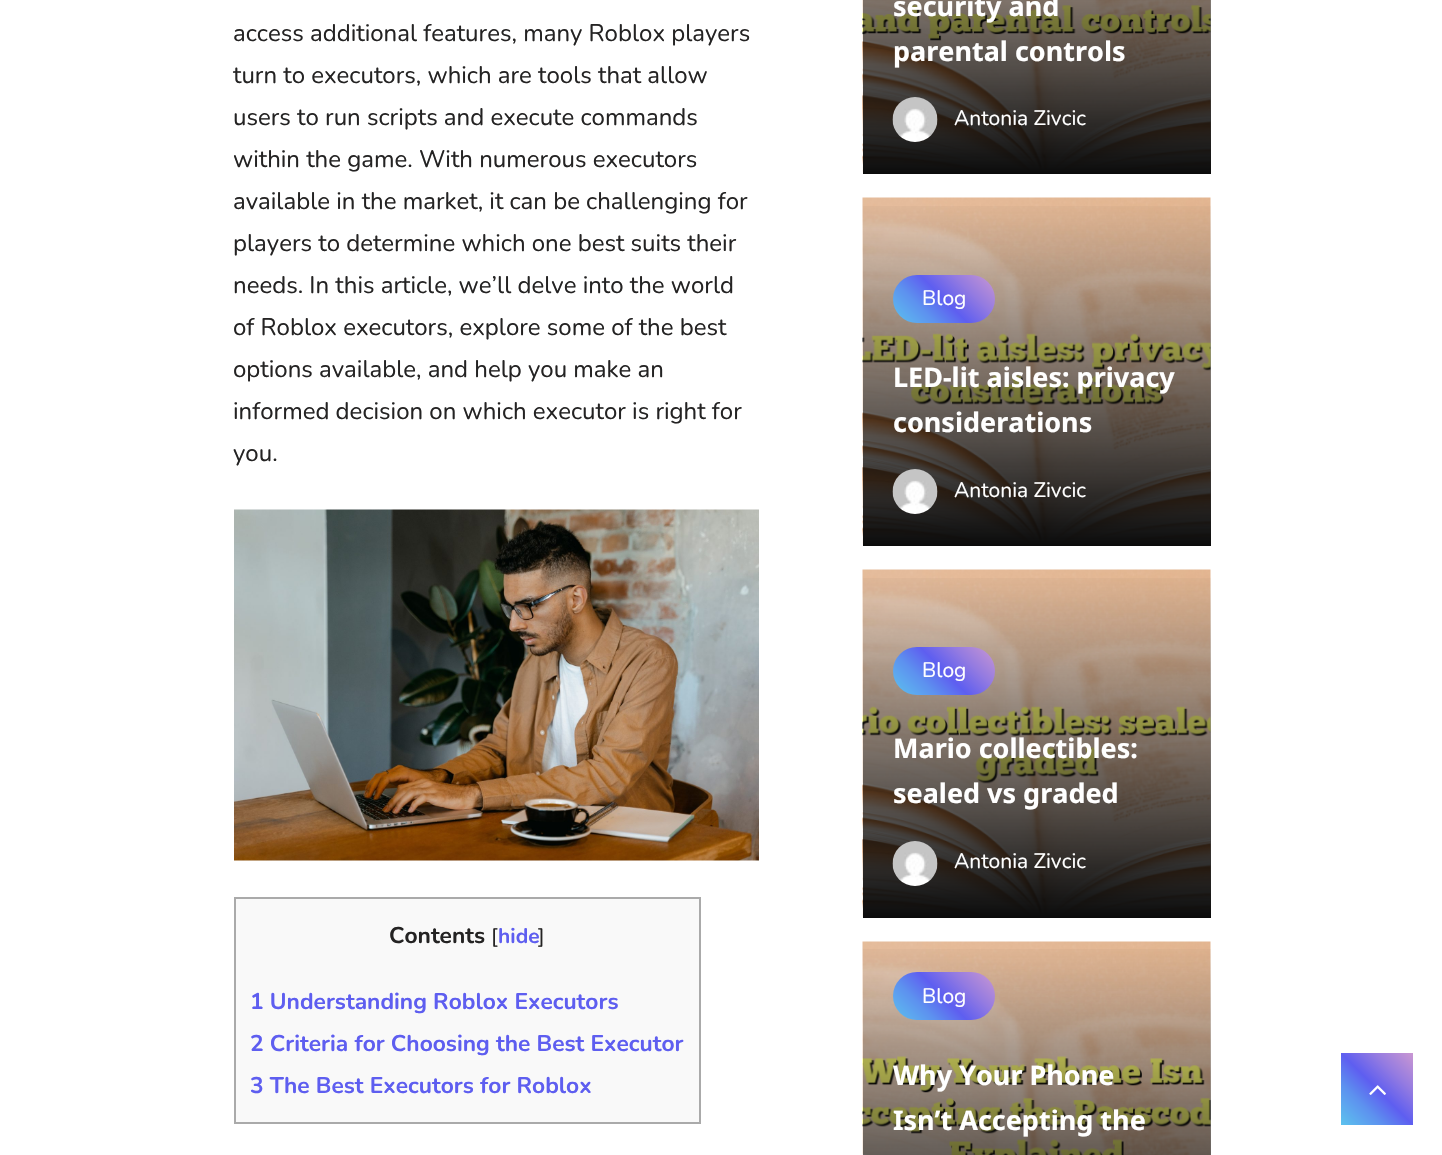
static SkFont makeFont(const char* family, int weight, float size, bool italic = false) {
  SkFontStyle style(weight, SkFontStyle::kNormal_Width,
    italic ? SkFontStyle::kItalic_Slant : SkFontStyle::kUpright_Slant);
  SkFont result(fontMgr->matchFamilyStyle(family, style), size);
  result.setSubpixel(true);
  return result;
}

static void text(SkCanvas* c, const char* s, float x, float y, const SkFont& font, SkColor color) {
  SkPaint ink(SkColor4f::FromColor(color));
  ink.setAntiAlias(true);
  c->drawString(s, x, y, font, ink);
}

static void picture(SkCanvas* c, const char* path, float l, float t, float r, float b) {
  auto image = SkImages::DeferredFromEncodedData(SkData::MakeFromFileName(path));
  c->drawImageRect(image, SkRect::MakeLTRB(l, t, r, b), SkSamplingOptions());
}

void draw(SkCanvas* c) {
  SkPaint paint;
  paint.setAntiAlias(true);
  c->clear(0xffffffff);
  SkFont face1 = makeFont("Nunito", 400, 24);
  text(c, "access additional features, many Roblox players", 233, 41, face1, 0xff242323);
  text(c, "turn to executors, which are tools that allow", 233, 83, face1, 0xff242323);
  text(c, "users to run scripts and execute commands", 233, 125, face1, 0xff242323);
  text(c, "within the game. With numerous executors", 233, 167, face1, 0xff242323);
  text(c, "available in the market, it can be challenging for", 233, 209, face1, 0xff242323);
  text(c, "players to determine which one best suits their", 233, 251, face1, 0xff242323);
  text(c, "needs. In this article, we’ll delve into the world", 233, 293, face1, 0xff242323);
  text(c, "of Roblox executors, explore some of the best", 233, 335, face1, 0xff242323);
  text(c, "options available, and help you make an", 233, 377, face1, 0xff242323);
  text(c, "informed decision on which executor is right for", 233, 419, face1, 0xff242323);
  text(c, "you.", 233, 461, face1, 0xff242323);
  picture(c, "img_01.png", 234, 509, 759, 861);
  paint.setColor(0xfff9f9f9);
  c->drawRect(SkRect::MakeLTRB(235, 898, 700, 1123), paint);
  paint.setStyle(SkPaint::kStroke_Style);
  paint.setStrokeWidth(2);
  paint.setColor(0xffaaaaaa);
  c->drawRect(SkRect::MakeLTRB(235, 898, 700, 1123), paint);
  SkFont face2 = makeFont("Nunito", 700, 22.75f);
  text(c, "Contents", 389, 943, face2, 0xff242323);
  SkFont face3 = makeFont("Nunito", 400, 21);
  text(c, "[", 491, 943, face3, 0xff242323);
  SkFont face4 = makeFont("Nunito", 700, 21);
  text(c, "hide", 498, 943, face4, 0xff5e5ef0);
  text(c, "]", 538, 943, face3, 0xff242323);
  text(c, "1 Understanding Roblox Executors", 250, 1009, face2, 0xff5e5ef0);
  text(c, "2 Criteria for Choosing the Best Executor", 250, 1051, face2, 0xff5e5ef0);
  text(c, "3 The Best Executors for Roblox", 250, 1093, face2, 0xff5e5ef0);
  picture(c, "img_02.png", 862, 0, 1211, 174);
  paint.setStyle(SkPaint::kFill_Style);
  {
    const SkColor colors[] = {0xff0b0b0b, 0x000b0b0b};
    const float stops[] = {0, 1};
    const SkPoint ends[] = {{1037, 174}, {1037, -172}};
    paint.setShader(SkGradientShader::MakeLinear(ends, colors, stops, 2, SkTileMode::kClamp));
    paint.setAlpha(255);
  }
  c->drawRect(SkRect::MakeLTRB(863, 0, 1211, 174), paint);
  SkFont face5 = makeFont("Noto Sans", 700, 27);
  text(c, "security and", 893, 16, face5, 0xffffffff);
  text(c, "parental controls", 893, 61, face5, 0xffffffff);
  picture(c, "img_03.png", 892, 97, 938, 142);
  text(c, "Antonia Zivcic", 954, 125, face3, 0xffffffff);
  picture(c, "img_04.png", 862, 197, 1211, 546);
  {
    const SkColor colors[] = {0xff0b0b0b, 0x000b0b0b};
    const float stops[] = {0, 1};
    const SkPoint ends[] = {{1037, 546}, {1037, 198}};
    paint.setShader(SkGradientShader::MakeLinear(ends, colors, stops, 2, SkTileMode::kClamp));
    paint.setAlpha(255);
  }
  c->drawRect(SkRect::MakeLTRB(863, 206, 1211, 546), paint);
  {
    const SkColor colors[] = {0xff5cc3ee, 0xff5d91ef, 0xff5e5ef0, 0xff947be1, 0xffca97d2};
    const float stops[] = {0, 0.29f, 0.5f, 0.73f, 1};
    const SkPoint ends[] = {{906, 336}, {981, 261}};
    paint.setShader(SkGradientShader::MakeLinear(ends, colors, stops, 5, SkTileMode::kClamp));
    paint.setAlpha(255);
  }
  c->drawRoundRect(SkRect::MakeLTRB(893, 275, 995, 323), 24, 24, paint);
  text(c, "Blog", 922, 305, face3, 0xffffffff);
  text(c, "LED-lit aisles: privacy", 893, 387, face5, 0xffffffff);
  text(c, "considerations", 893, 432, face5, 0xffffffff);
  picture(c, "img_05.png", 892, 469, 938, 514);
  text(c, "Antonia Zivcic", 954, 497, face3, 0xffffffff);
  picture(c, "img_06.png", 862, 569, 1211, 918);
  {
    const SkColor colors[] = {0xff0b0b0b, 0x000b0b0b};
    const float stops[] = {0, 1};
    const SkPoint ends[] = {{1037, 918}, {1037, 570}};
    paint.setShader(SkGradientShader::MakeLinear(ends, colors, stops, 2, SkTileMode::kClamp));
    paint.setAlpha(255);
  }
  c->drawRect(SkRect::MakeLTRB(863, 578, 1211, 918), paint);
  {
    const SkColor colors[] = {0xff5cc3ee, 0xff5d91ef, 0xff5e5ef0, 0xff947be1, 0xffca97d2};
    const float stops[] = {0, 0.29f, 0.5f, 0.73f, 1};
    const SkPoint ends[] = {{906, 708}, {981, 633}};
    paint.setShader(SkGradientShader::MakeLinear(ends, colors, stops, 5, SkTileMode::kClamp));
    paint.setAlpha(255);
  }
  c->drawRoundRect(SkRect::MakeLTRB(893, 647, 995, 695), 24, 24, paint);
  text(c, "Blog", 922, 677, face3, 0xffffffff);
  text(c, "Mario collectibles:", 893, 758, face5, 0xffffffff);
  text(c, "sealed vs graded", 893, 803, face5, 0xffffffff);
  picture(c, "img_05.png", 892, 841, 938, 886);
  text(c, "Antonia Zivcic", 954, 868, face3, 0xffffffff);
  picture(c, "img_07.png", 862, 941, 1211, 1155);
  {
    const SkColor colors[] = {0xff0b0b0b, 0x000b0b0b};
    const float stops[] = {0, 1};
    const SkPoint ends[] = {{1037, 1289}, {1037, 942}};
    paint.setShader(SkGradientShader::MakeLinear(ends, colors, stops, 2, SkTileMode::kClamp));
    paint.setAlpha(255);
  }
  c->drawRect(SkRect::MakeLTRB(863, 949, 1211, 1155), paint);
  {
    const SkColor colors[] = {0xff5cc3ee, 0xff5d91ef, 0xff5e5ef0, 0xff947be1, 0xffca97d2};
    const float stops[] = {0, 0.29f, 0.5f, 0.73f, 1};
    const SkPoint ends[] = {{906, 1034}, {981, 959}};
    paint.setShader(SkGradientShader::MakeLinear(ends, colors, stops, 5, SkTileMode::kClamp));
    paint.setAlpha(255);
  }
  c->drawRoundRect(SkRect::MakeLTRB(893, 972, 995, 1020), 24, 24, paint);
  text(c, "Blog", 922, 1003, face3, 0xffffffff);
  text(c, "Why Your Phone", 893, 1085, face5, 0xffffffff);
  text(c, "Isn’t Accepting the", 893, 1130, face5, 0xffffffff);
  {
    const SkColor colors[] = {0xff5cc3ee, 0xff5d91ef, 0xff5e5ef0, 0xff947be1, 0xffca97d2};
    const float stops[] = {0, 0.29f, 0.5f, 0.73f, 1};
    const SkPoint ends[] = {{1341, 1125}, {1413, 1053}};
    paint.setShader(SkGradientShader::MakeLinear(ends, colors, stops, 5, SkTileMode::kClamp));
    paint.setAlpha(255);
  }
  c->drawRect(SkRect::MakeLTRB(1341, 1053, 1413, 1125), paint);
  picture(c, "img_08.png", 1369, 1085, 1386, 1095);
}
